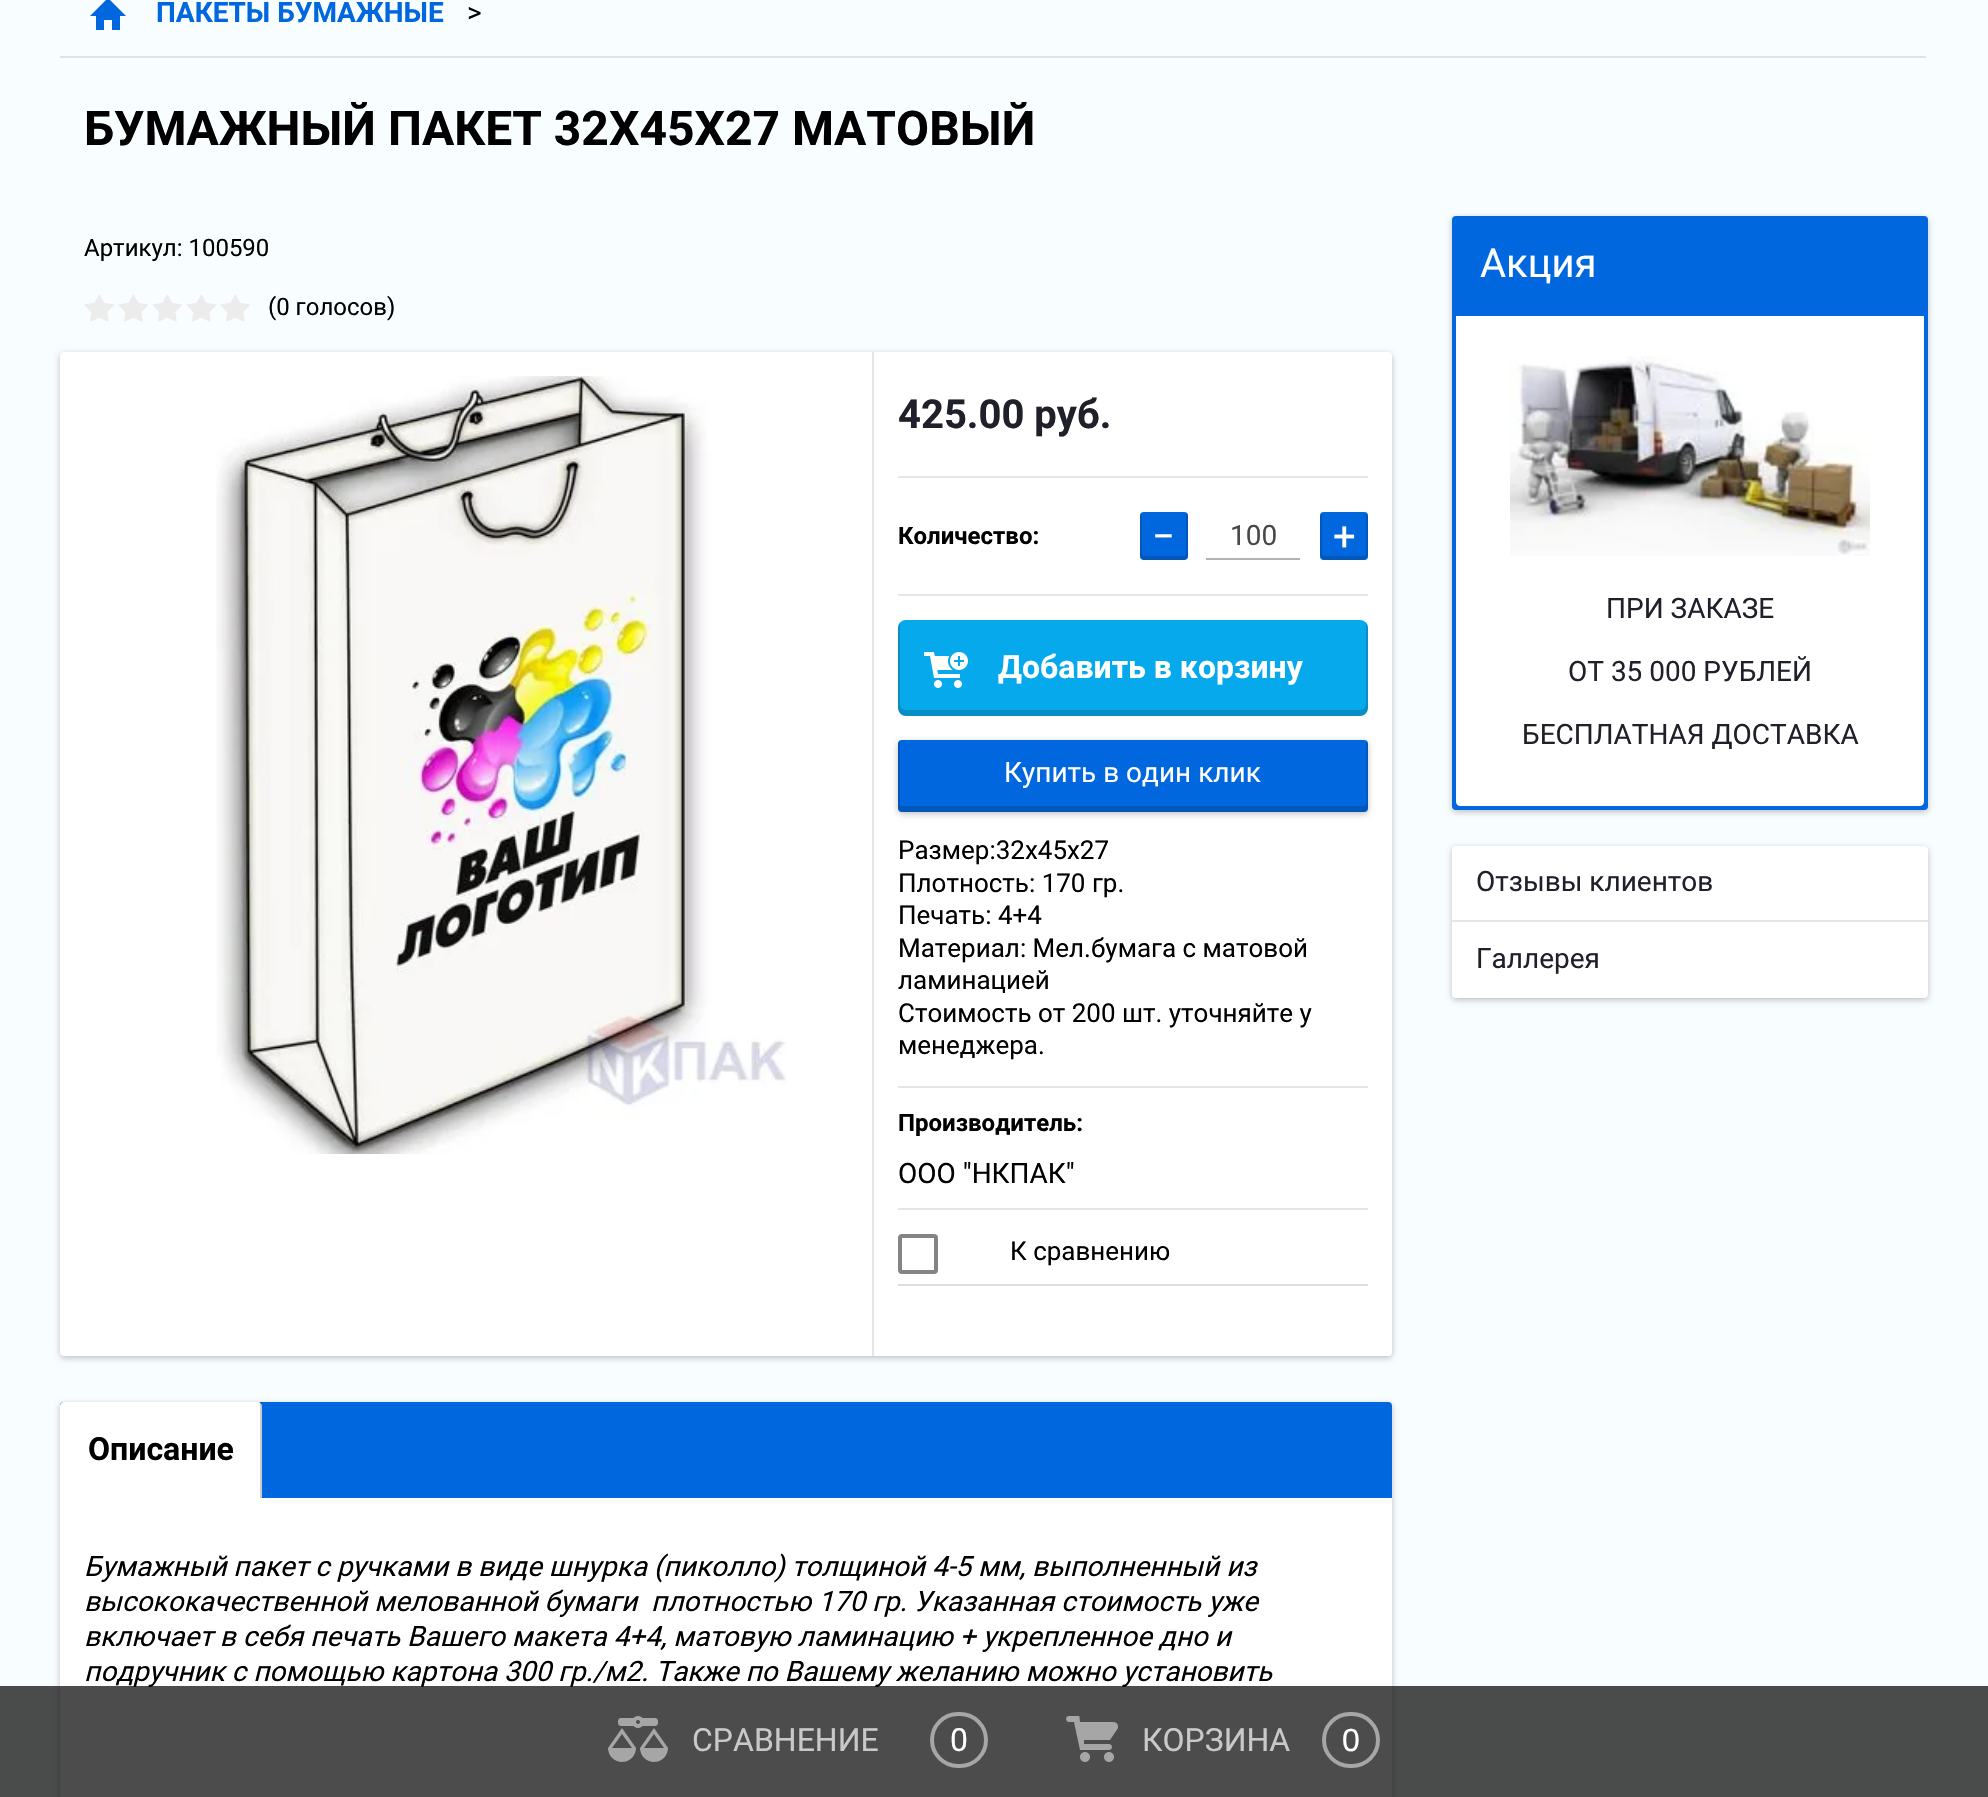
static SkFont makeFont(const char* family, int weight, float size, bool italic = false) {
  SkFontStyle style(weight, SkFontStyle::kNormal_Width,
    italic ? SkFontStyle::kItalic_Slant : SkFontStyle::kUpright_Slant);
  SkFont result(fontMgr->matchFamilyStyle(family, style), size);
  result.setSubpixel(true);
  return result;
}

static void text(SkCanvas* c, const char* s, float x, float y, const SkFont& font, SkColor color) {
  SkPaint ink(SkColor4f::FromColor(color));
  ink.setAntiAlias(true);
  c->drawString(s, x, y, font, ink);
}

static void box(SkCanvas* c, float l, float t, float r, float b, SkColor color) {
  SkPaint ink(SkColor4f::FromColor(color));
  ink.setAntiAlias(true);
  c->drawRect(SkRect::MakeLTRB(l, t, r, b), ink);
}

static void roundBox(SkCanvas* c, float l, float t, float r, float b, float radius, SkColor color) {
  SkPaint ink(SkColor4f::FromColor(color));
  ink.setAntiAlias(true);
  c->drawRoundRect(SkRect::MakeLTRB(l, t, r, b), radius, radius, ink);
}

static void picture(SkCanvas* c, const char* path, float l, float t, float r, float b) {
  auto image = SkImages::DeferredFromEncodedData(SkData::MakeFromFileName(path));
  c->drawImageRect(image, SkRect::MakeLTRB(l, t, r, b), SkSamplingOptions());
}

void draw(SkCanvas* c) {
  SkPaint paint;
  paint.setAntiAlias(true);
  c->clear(0xfff8fdff);
  box(c, 60, 56, 1926, 58, 0xffe1e2e3);
  paint.setColor(0xff0167de);
  c->drawPath(SkPathBuilder(SkPathFillType::kEvenOdd).moveTo(120, 16).lineTo(120, 30).lineTo(112, 30).lineTo(112, 20).lineTo(104, 20).lineTo(104, 30).lineTo(96, 30).lineTo(96, 16).lineTo(90, 16).lineTo(108, -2).lineTo(126, 16).close().detach(), paint);
  SkFont face1 = makeFont("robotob", 700, 28);
  text(c, "ПАКЕТЫ БУМАЖНЫЕ", 156, 22, face1, 0xff0167de);
  SkFont face2 = makeFont("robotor", 400, 28);
  text(c, ">", 467, 22, face2, 0xff000000);
  SkFont face3 = makeFont("robotob", 700, 48);
  text(c, "БУМАЖНЫЙ ПАКЕТ 32Х45Х27 МАТОВЫЙ", 84, 145, face3, 0xff000000);
  SkFont face4 = makeFont("robotor", 400, 24);
  text(c, "Артикул: 100590", 84, 256, face4, 0xff000000);
  picture(c, "img_01.png", 84, 294, 251, 322);
  text(c, "(0 голосов)", 268, 315, face4, 0xff000000);
  paint.setColor(0x3d000000);
  paint.setMaskFilter(SkMaskFilter::MakeBlur(kNormal_SkBlurStyle, 3));
  c->drawRoundRect(SkRect::MakeLTRB(60, 354, 1392, 1358), 4, 4, paint);
  paint.setMaskFilter(nullptr);
  roundBox(c, 60, 352, 1392, 1356, 4, 0xffffffff);
  picture(c, "img_02.png", 216, 376, 787, 1154);
  box(c, 872, 352, 874, 1356, 0xffe6e6e6);
  SkFont face5 = makeFont("robotob", 700, 40);
  text(c, "425.00 руб.", 898, 428, face5, 0xff20202a);
  box(c, 898, 476, 1368, 478, 0xffe5e5e5);
  box(c, 898, 594, 1368, 596, 0xffe5e5e5);
  SkFont face6 = makeFont("robotob", 700, 24);
  text(c, "Количество:", 898, 544, face6, 0xff000000);
  roundBox(c, 1140, 512, 1188, 560, 4, 0xff0167de);
  paint.setColor(0x29000000);
  c->drawPath(SkPathBuilder().moveTo(1144, 512).cubicTo(1142, 512, 1140, 514, 1140, 516).lineTo(1140, 556).cubicTo(1140, 558, 1142, 560, 1144, 560).lineTo(1184, 560).cubicTo(1186, 560, 1188, 558, 1188, 556).lineTo(1188, 516).cubicTo(1188, 514, 1186, 512, 1184, 512).cubicTo(1185, 512, 1186, 513, 1186, 514).lineTo(1186, 554).cubicTo(1186, 555, 1185, 556, 1184, 556).lineTo(1144, 556).cubicTo(1143, 556, 1142, 555, 1142, 554).lineTo(1142, 514).cubicTo(1142, 513, 1143, 512, 1144, 512).close().detach(), paint);
  SkFont face7 = makeFont("robotor", 400, 40);
  text(c, "−", 1152, 550, face7, 0xffffffff);
  box(c, 1206, 558, 1300, 560, 0xffb2b2b2);
  text(c, "100", 1230, 545, face2, 0xff484848);
  roundBox(c, 1320, 512, 1368, 560, 4, 0xff0167de);
  c->drawPath(SkPathBuilder().moveTo(1324, 512).cubicTo(1322, 512, 1320, 514, 1320, 516).lineTo(1320, 556).cubicTo(1320, 558, 1322, 560, 1324, 560).lineTo(1364, 560).cubicTo(1366, 560, 1368, 558, 1368, 556).lineTo(1368, 516).cubicTo(1368, 514, 1366, 512, 1364, 512).cubicTo(1365, 512, 1366, 513, 1366, 514).lineTo(1366, 554).cubicTo(1366, 555, 1365, 556, 1364, 556).lineTo(1324, 556).cubicTo(1323, 556, 1322, 555, 1322, 554).lineTo(1322, 514).cubicTo(1322, 513, 1323, 512, 1324, 512).close().detach(), paint);
  text(c, "+", 1333, 550, face7, 0xffffffff);
  roundBox(c, 898, 620, 1368, 716, 8, 0xff06a9eb);
  c->drawPath(SkPathBuilder().moveTo(900, 622).cubicTo(899, 624, 898, 626, 898, 628).lineTo(898, 708).cubicTo(898, 712, 902, 716, 906, 716).lineTo(1360, 716).cubicTo(1364, 716, 1368, 712, 1368, 708).lineTo(1368, 628).cubicTo(1368, 626, 1367, 624, 1366, 622).lineTo(1366, 704).cubicTo(1366, 707, 1363, 710, 1360, 710).lineTo(906, 710).cubicTo(903, 710, 900, 707, 900, 704).close().detach(), paint);
  picture(c, "img_03.png", 924, 652, 968, 688);
  SkFont face8 = makeFont("robotob", 700, 32);
  text(c, "Добавить в корзину", 998, 678, face8, 0xffffffff);
  paint.setColor(0x3d000000);
  paint.setMaskFilter(SkMaskFilter::MakeBlur(kNormal_SkBlurStyle, 3));
  c->drawRoundRect(SkRect::MakeLTRB(898, 742, 1368, 814), 4, 4, paint);
  paint.setMaskFilter(nullptr);
  roundBox(c, 898, 740, 1368, 812, 4, 0xff0167de);
  paint.setColor(0x29000000);
  c->drawPath(SkPathBuilder().moveTo(900, 741).cubicTo(899, 741, 898, 743, 898, 744).lineTo(898, 808).cubicTo(898, 810, 900, 812, 902, 812).lineTo(1364, 812).cubicTo(1366, 812, 1368, 810, 1368, 808).lineTo(1368, 744).cubicTo(1368, 743, 1367, 741, 1366, 741).lineTo(1366, 797).cubicTo(1367, 801, 1367, 806, 1364, 806).lineTo(902, 806).cubicTo(901, 806, 900, 805, 900, 804).close().detach(), paint);
  text(c, "Купить в один клик", 1004, 782, face2, 0xffffffff);
  SkFont face9 = makeFont("robotor", 400, 26);
  text(c, "Размер:32х45х27", 898, 859, face9, 0xff000000);
  text(c, "Плотность: 170 гр.", 898, 892, face9, 0xff000000);
  text(c, "Печать: 4+4", 898, 924, face9, 0xff000000);
  text(c, "Материал: Мел.бумага с матовой", 898, 957, face9, 0xff000000);
  text(c, "ламинацией", 898, 989, face9, 0xff000000);
  text(c, "Стоимость от 200 шт. уточняйте у", 898, 1022, face9, 0xff000000);
  text(c, "менеджера.", 898, 1054, face9, 0xff000000);
  box(c, 898, 1086, 1368, 1088, 0xffe5e5e5);
  box(c, 898, 1208, 1368, 1210, 0xffe5e5e5);
  text(c, "Производитель:", 898, 1131, face6, 0xff000000);
  text(c, "ООО \"НКПАК\"", 898, 1183, face2, 0xff000000);
  box(c, 898, 1284, 1368, 1286, 0xffdedede);
  paint.setStyle(SkPaint::kStroke_Style);
  paint.setStrokeWidth(4);
  paint.setColor(0xff848484);
  c->drawRoundRect(SkRect::MakeLTRB(900, 1236, 936, 1272), 2, 2, paint);
  text(c, "К сравнению", 1010, 1260, face9, 0xff000000);
  paint.setStyle(SkPaint::kFill_Style);
  paint.setColor(0x3d000000);
  paint.setMaskFilter(SkMaskFilter::MakeBlur(kNormal_SkBlurStyle, 3));
  c->drawRoundRect(SkRect::MakeLTRB(60, 1404, 1392, 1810), 4, 4, paint);
  paint.setMaskFilter(nullptr);
  roundBox(c, 60, 1402, 1392, 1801, 4, 0xff0167de);
  paint.setColor(0xffffffff);
  c->drawPath(SkPathBuilder().moveTo(64, 1402).lineTo(258, 1402).cubicTo(260, 1402, 262, 1404, 262, 1406).lineTo(262, 1498).lineTo(60, 1498).lineTo(60, 1406).cubicTo(60, 1404, 62, 1402, 64, 1402).close().detach(), paint);
  text(c, "Описание", 88, 1460, face8, 0xff000000);
  box(c, 260, 1402, 262, 1498, 0x33000000);
  box(c, 60, 1498, 1392, 1797, 0xffffffff);
  SkFont face10 = makeFont("robotor", 400, 28, true);
  text(c, "Бумажный пакет с ручками в виде шнурка (пиколло) толщиной 4-5 мм, выполненный из", 84, 1576, face10, 0xff000000);
  text(c, "высококачественной мелованной бумаги  плотностью 170 гр. Указанная стоимость уже", 84, 1611, face10, 0xff000000);
  text(c, "включает в себя печать Вашего макета 4+4, матовую ламинацию + укрепленное дно и", 84, 1646, face10, 0xff000000);
  text(c, "подручник с помощью картона 300 гр./м2. Также по Вашему желанию можно установить", 84, 1681, face10, 0xff000000);
  paint.setColor(0x3d000000);
  paint.setMaskFilter(SkMaskFilter::MakeBlur(kNormal_SkBlurStyle, 3));
  c->drawRoundRect(SkRect::MakeLTRB(1452, 218, 1928, 812), 4, 4, paint);
  paint.setMaskFilter(nullptr);
  roundBox(c, 1452, 216, 1928, 810, 4, 0xff0167de);
  text(c, "Акция", 1480, 277, face7, 0xffffffff);
  paint.setColor(0xffffffff);
  c->drawPath(SkPathBuilder().moveTo(1456, 316).lineTo(1924, 316).lineTo(1924, 802).cubicTo(1924, 804, 1922, 806, 1920, 806).lineTo(1460, 806).cubicTo(1458, 806, 1456, 804, 1456, 802).close().detach(), paint);
  picture(c, "img_04.png", 1510, 356, 1870, 556);
  text(c, "ПРИ ЗАКАЗЕ", 1606, 618, face2, 0xff20202a);
  text(c, "ОТ 35 000 РУБЛЕЙ", 1568, 681, face2, 0xff20202a);
  text(c, "БЕСПЛАТНАЯ ДОСТАВКА", 1522, 744, face2, 0xff20202a);
  paint.setColor(0x3d000000);
  paint.setMaskFilter(SkMaskFilter::MakeBlur(kNormal_SkBlurStyle, 3));
  c->drawRoundRect(SkRect::MakeLTRB(1452, 848, 1928, 1000), 4, 4, paint);
  paint.setMaskFilter(nullptr);
  roundBox(c, 1452, 846, 1928, 998, 4, 0xffffffff);
  text(c, "Отзывы клиентов", 1476, 891, face2, 0xff20202a);
  box(c, 1452, 920, 1928, 922, 0xffe6e6e6);
  text(c, "Галлерея", 1476, 968, face2, 0xff20202a);
  box(c, 0, 1686, 1988, 1797, 0xb3000000);
  picture(c, "img_05.png", 608, 1716, 668, 1762);
  SkFont face11 = makeFont("robotor", 400, 32);
  text(c, "СРАВНЕНИЕ", 692, 1751, face11, 0xffc9c9c9);
  paint.setStyle(SkPaint::kStroke_Style);
  paint.setColor(0x80ffffff);
  c->drawRoundRect(SkRect::MakeLTRB(932, 1714, 986, 1766), 26, 26, paint);
  text(c, "0", 950, 1751, face11, 0xffffffff);
  picture(c, "img_06.png", 1066, 1716, 1118, 1762);
  text(c, "КОРЗИНА", 1142, 1751, face11, 0xffc9c9c9);
  c->drawRoundRect(SkRect::MakeLTRB(1324, 1714, 1378, 1766), 26, 26, paint);
  SkFont face12 = makeFont("Liberation Sans", 400, 32);
  text(c, "0", 1342, 1751, face12, 0xffffffff);
}
